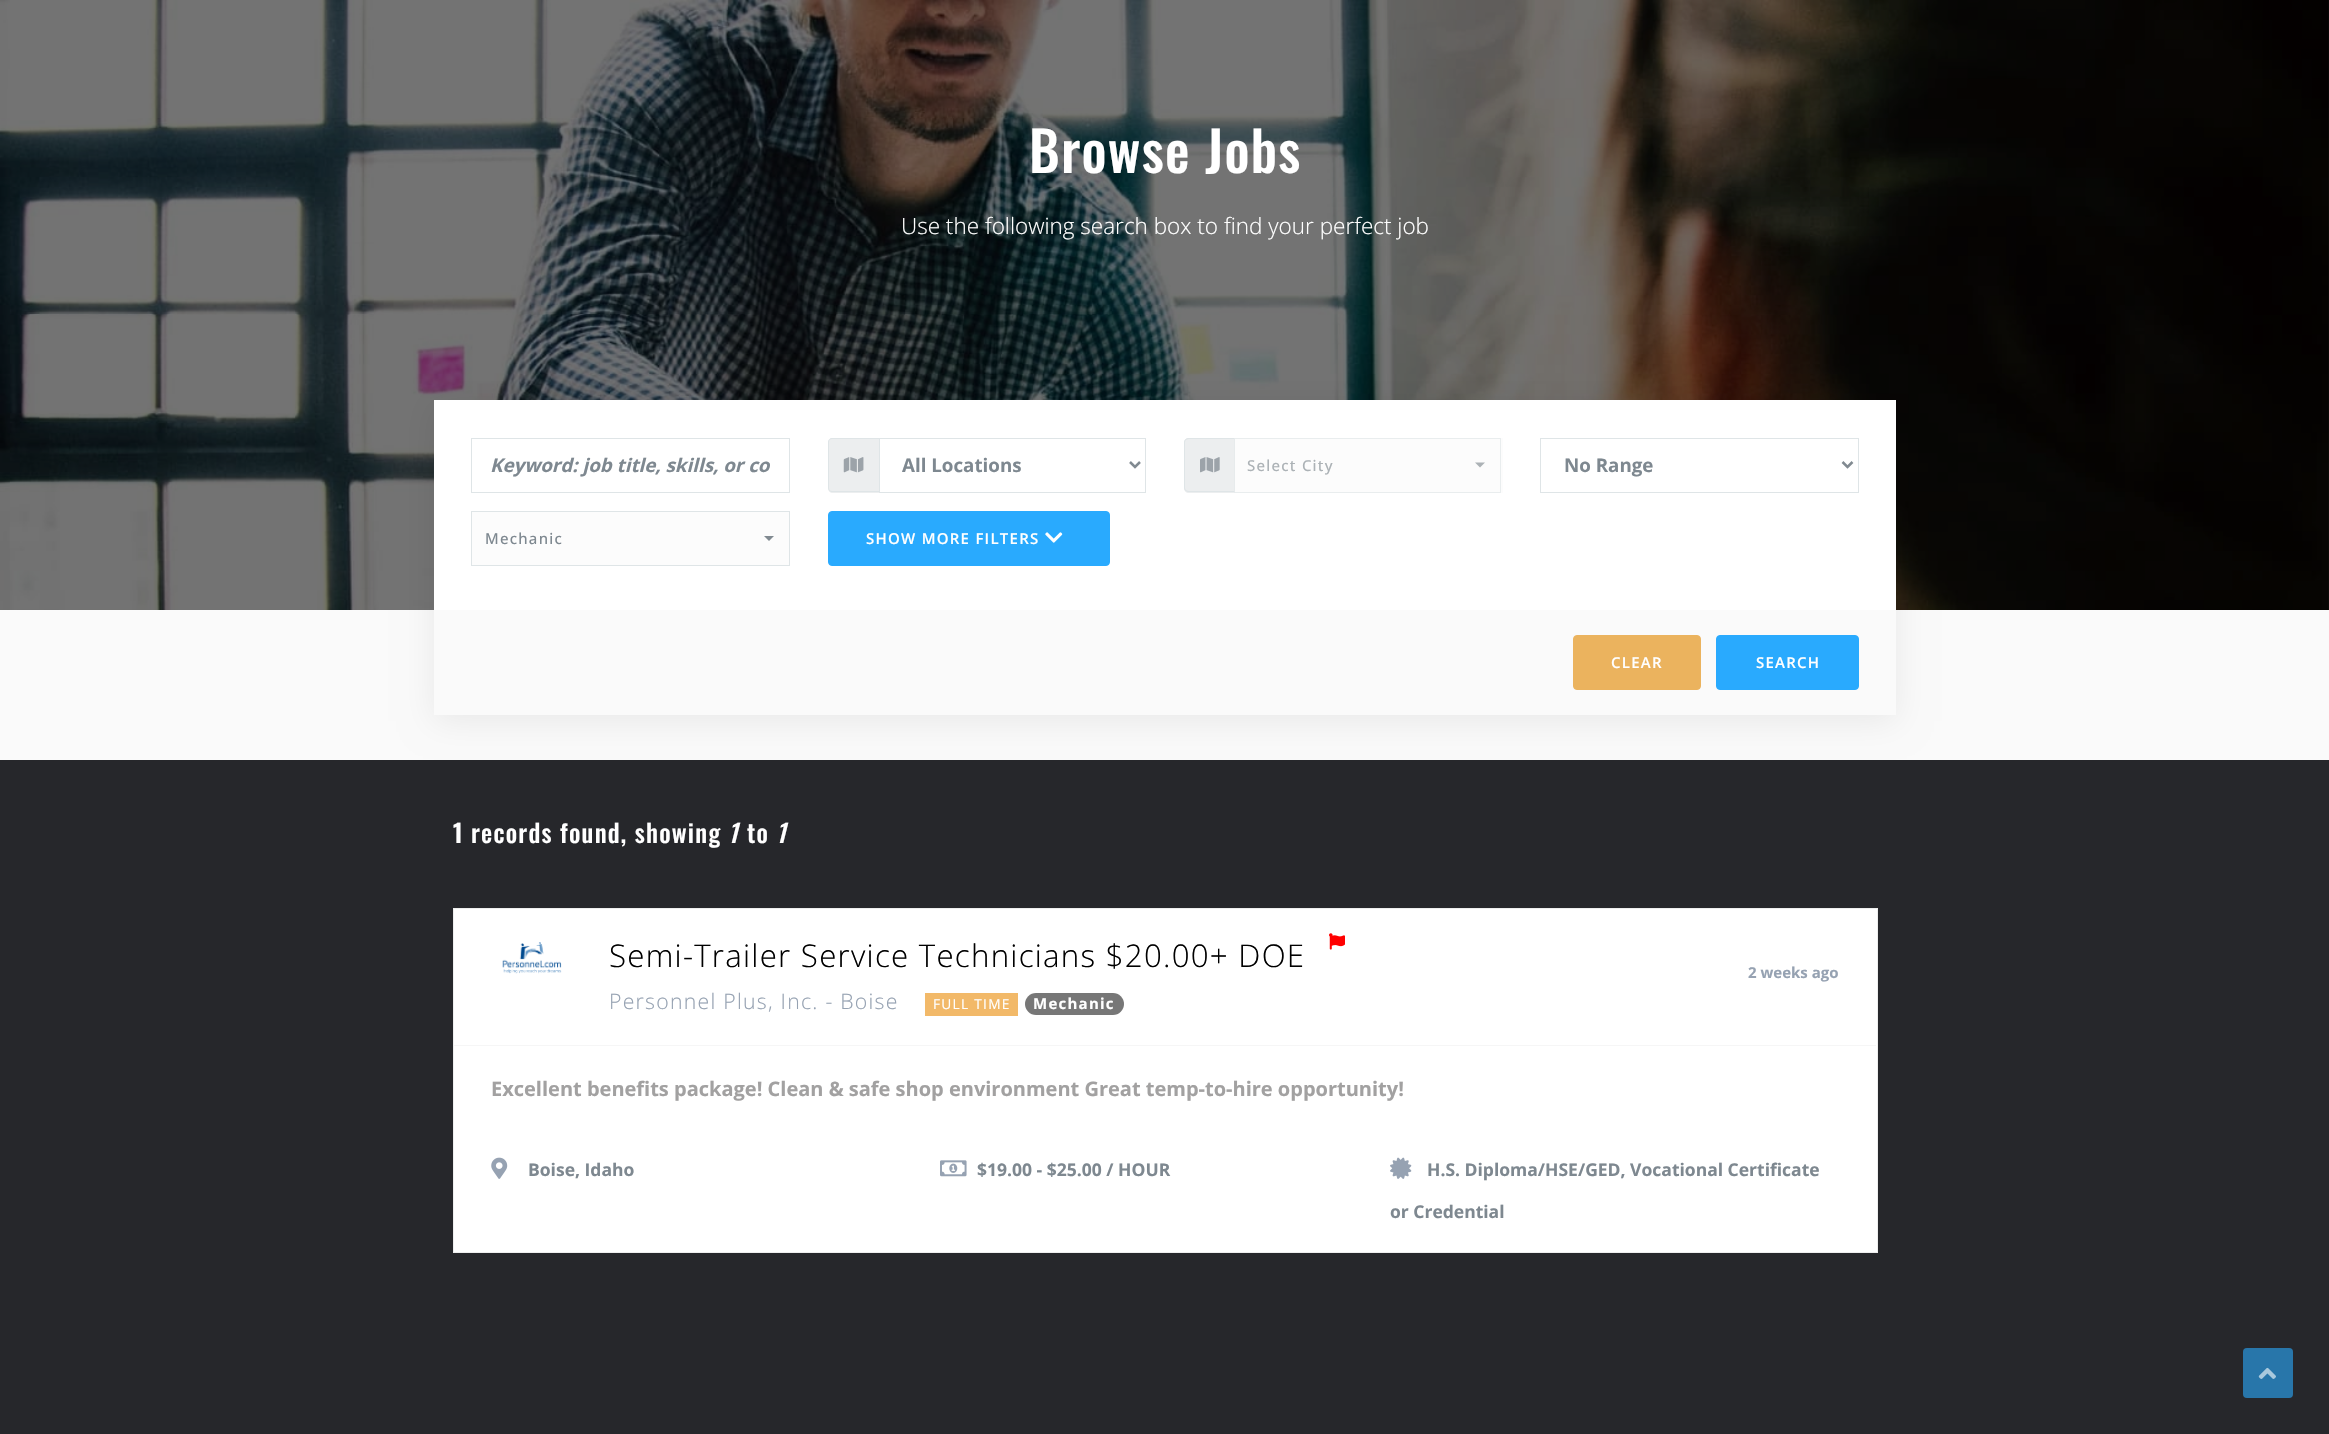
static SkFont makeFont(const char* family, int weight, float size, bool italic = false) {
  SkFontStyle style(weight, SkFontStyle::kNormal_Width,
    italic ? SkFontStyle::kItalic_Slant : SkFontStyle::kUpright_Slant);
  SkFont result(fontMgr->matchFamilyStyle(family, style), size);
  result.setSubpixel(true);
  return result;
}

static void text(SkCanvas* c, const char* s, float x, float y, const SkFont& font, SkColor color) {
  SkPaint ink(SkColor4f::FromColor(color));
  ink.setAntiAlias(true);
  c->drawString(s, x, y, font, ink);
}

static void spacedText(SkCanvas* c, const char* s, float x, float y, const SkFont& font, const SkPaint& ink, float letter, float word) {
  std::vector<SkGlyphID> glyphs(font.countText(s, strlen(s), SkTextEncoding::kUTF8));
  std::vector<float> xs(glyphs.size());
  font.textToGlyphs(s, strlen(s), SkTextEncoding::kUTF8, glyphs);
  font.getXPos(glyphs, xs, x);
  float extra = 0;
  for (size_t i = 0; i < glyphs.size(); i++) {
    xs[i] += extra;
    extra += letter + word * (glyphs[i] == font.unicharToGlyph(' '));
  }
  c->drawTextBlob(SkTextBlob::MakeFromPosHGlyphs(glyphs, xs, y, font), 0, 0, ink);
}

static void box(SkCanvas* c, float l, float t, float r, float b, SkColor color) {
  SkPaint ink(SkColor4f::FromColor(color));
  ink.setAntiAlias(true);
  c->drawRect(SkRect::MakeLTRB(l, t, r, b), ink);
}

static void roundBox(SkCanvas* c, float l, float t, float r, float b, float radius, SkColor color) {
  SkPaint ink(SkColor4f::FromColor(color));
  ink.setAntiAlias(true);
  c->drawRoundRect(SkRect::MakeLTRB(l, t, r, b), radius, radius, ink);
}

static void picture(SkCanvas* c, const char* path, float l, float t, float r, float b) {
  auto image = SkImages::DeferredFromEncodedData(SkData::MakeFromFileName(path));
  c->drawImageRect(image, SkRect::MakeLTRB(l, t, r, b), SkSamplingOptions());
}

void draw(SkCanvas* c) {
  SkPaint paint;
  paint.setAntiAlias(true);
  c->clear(0xfffafafa);
  picture(c, "img_01.png", 0, 0, 2329, 610);
  SkFont face1 = makeFont("Oswald", 500, 55);
  paint.setColor(0xffffffff);
  spacedText(c, "Browse Jobs", 1029, 173, face1, paint, 1.25f, 0);
  SkFont face2 = makeFont("Open Sans", 300, 22.5f);
  text(c, "Use the following search box to find your perfect job", 901, 234, face2, 0xffffffff);
  box(c, 0, 760, 2329, 1434, 0xff26272b);
  paint.setColor(0x12000000);
  paint.setMaskFilter(SkMaskFilter::MakeBlur(kNormal_SkBlurStyle, 15.5f));
  c->drawRect(SkRect::MakeLTRB(434, 406, 1896, 721), paint);
  paint.setMaskFilter(nullptr);
  box(c, 434, 400, 1896, 610, 0xffffffff);
  paint.setStyle(SkPaint::kStroke_Style);
  paint.setStrokeWidth(1);
  paint.setColor(0xffdfe5e7);
  c->drawRect(SkRect::MakeLTRB(471.5f, 438.5f, 789.5f, 492.5f), paint);
  SkFont face3 = makeFont("Open Sans", 700, 18.75f, true);
  text(c, "Keyword: job title, skills, or co", 490, 472, face3, 0xff7e8890);
  paint.setStyle(SkPaint::kFill_Style);
  paint.setColor(0xffeceeef);
  c->drawPath(SkPathBuilder().moveTo(833, 438).lineTo(879, 438).lineTo(879, 493).lineTo(833, 493).cubicTo(830, 493, 828, 491, 828, 488).lineTo(828, 443).cubicTo(828, 440, 830, 438, 833, 438).close().detach(), paint);
  paint.setColor(0xffdfe5e7);
  c->drawPath(SkPathBuilder(SkPathFillType::kEvenOdd).moveTo(832, 438).lineTo(879, 438).lineTo(879, 492).lineTo(832, 492).cubicTo(830, 492, 828, 490, 828, 488).lineTo(828, 442).cubicTo(828, 440, 830, 438, 832, 438).close().moveTo(832, 439).lineTo(879, 439).lineTo(879, 491).lineTo(832, 491).cubicTo(830, 491, 829, 490, 829, 488).lineTo(829, 442).cubicTo(829, 440, 830, 439, 832, 439).close().detach(), paint);
  picture(c, "img_02.png", 843, 457, 864, 473);
  paint.setStyle(SkPaint::kStroke_Style);
  c->drawRect(SkRect::MakeLTRB(879.5f, 438.5f, 1145.5f, 492.5f), paint);
  paint.setStrokeWidth(2.5f);
  paint.setColor(0xff818a91);
  c->drawPath(SkPathBuilder().moveTo(1130, 462).lineTo(1135, 467).lineTo(1140, 462).detach(), paint);
  SkFont face4 = makeFont("Open Sans", 700, 18.75f);
  text(c, "All Locations", 902, 472, face4, 0xff7e8890);
  paint.setStyle(SkPaint::kFill_Style);
  paint.setColor(0xffeceeef);
  c->drawPath(SkPathBuilder().moveTo(1189, 438).lineTo(1235, 438).lineTo(1235, 493).lineTo(1189, 493).cubicTo(1186, 493, 1184, 491, 1184, 488).lineTo(1184, 443).cubicTo(1184, 440, 1186, 438, 1189, 438).close().detach(), paint);
  paint.setColor(0xffdfe5e7);
  c->drawPath(SkPathBuilder(SkPathFillType::kEvenOdd).moveTo(1189, 438).lineTo(1235, 438).lineTo(1235, 492).lineTo(1189, 492).cubicTo(1186, 492, 1184, 490, 1184, 488).lineTo(1184, 442).cubicTo(1184, 440, 1186, 438, 1189, 438).close().moveTo(1189, 439).lineTo(1235, 439).lineTo(1235, 491).lineTo(1189, 491).cubicTo(1187, 491, 1185, 490, 1185, 488).lineTo(1185, 442).cubicTo(1185, 440, 1187, 439, 1189, 439).close().detach(), paint);
  picture(c, "img_03.png", 1200, 457, 1220, 473);
  box(c, 1235, 438, 1503, 493, 0xfffcfcfc);
  box(c, 1234, 438, 1235, 493, 0xa6fcfcfc);
  paint.setStyle(SkPaint::kStroke_Style);
  paint.setStrokeWidth(1);
  paint.setColor(0xa6dfe5e7);
  c->drawRect(SkRect::MakeLTRB(1234.5f, 438.5f, 1500.5f, 492.5f), paint);
  SkFont face5 = makeFont("Open Sans", 500, 15);
  paint.setStyle(SkPaint::kFill_Style);
  paint.setColor(0xffacb2b6);
  spacedText(c, "Select City", 1247, 471, face5, paint, 1.25f, 0);
  c->drawPath(SkPathBuilder().moveTo(1475, 462.5f).lineTo(1485, 462.5f).lineTo(1480, 467.5f).close().detach(), paint);
  paint.setStyle(SkPaint::kStroke_Style);
  paint.setColor(0xffdfe5e7);
  c->drawRect(SkRect::MakeLTRB(1540.5f, 438.5f, 1858.5f, 492.5f), paint);
  paint.setStrokeWidth(2.5f);
  paint.setColor(0xff818a91);
  c->drawPath(SkPathBuilder().moveTo(1842.5f, 462).lineTo(1847.5f, 467).lineTo(1852.5f, 462).detach(), paint);
  text(c, "No Range", 1564, 472, face4, 0xff7e8890);
  paint.setStyle(SkPaint::kFill_Style);
  paint.setColor(0xfffcfcfc);
  c->drawRect(SkRect::MakeLTRB(471.5f, 511.5f, 789.5f, 565.5f), paint);
  paint.setStyle(SkPaint::kStroke_Style);
  paint.setStrokeWidth(1);
  paint.setColor(0xffdfe5e7);
  c->drawRect(SkRect::MakeLTRB(471.5f, 511.5f, 789.5f, 565.5f), paint);
  paint.setStyle(SkPaint::kFill_Style);
  paint.setColor(0xff7e8890);
  spacedText(c, "Mechanic", 485, 544, face5, paint, 1.25f, 0);
  paint.setColor(0xff818a91);
  c->drawPath(SkPathBuilder().moveTo(764, 536).lineTo(774, 536).lineTo(769, 541).close().detach(), paint);
  paint.setColor(0xff29aafe);
  c->drawRoundRect(SkRect::MakeLTRB(828.5f, 511.5f, 1109.5f, 565.5f), 3.5f, 3.5f, paint);
  paint.setStyle(SkPaint::kStroke_Style);
  c->drawRoundRect(SkRect::MakeLTRB(828.5f, 511.5f, 1109.5f, 565.5f), 3.5f, 3.5f, paint);
  SkFont face6 = makeFont("Open Sans", 600, 15);
  paint.setStyle(SkPaint::kFill_Style);
  paint.setColor(0xffffffff);
  spacedText(c, "SHOW MORE FILTERS", 866, 544, face6, paint, 1.25f, 0);
  picture(c, "img_04.png", 1045, 532, 1063, 543);
  box(c, 434, 610, 1896, 715, 0xfffafafa);
  paint.setColor(0xffebb35e);
  c->drawRoundRect(SkRect::MakeLTRB(1573.5f, 635.5f, 1700.5f, 689.5f), 3.5f, 3.5f, paint);
  paint.setStyle(SkPaint::kStroke_Style);
  c->drawRoundRect(SkRect::MakeLTRB(1573.5f, 635.5f, 1700.5f, 689.5f), 3.5f, 3.5f, paint);
  paint.setStyle(SkPaint::kFill_Style);
  paint.setColor(0xffffffff);
  spacedText(c, "CLEAR", 1611, 668, face6, paint, 1.25f, 0);
  paint.setColor(0xff29aafe);
  c->drawRoundRect(SkRect::MakeLTRB(1716.5f, 635.5f, 1858.5f, 689.5f), 3.5f, 3.5f, paint);
  paint.setStyle(SkPaint::kStroke_Style);
  c->drawRoundRect(SkRect::MakeLTRB(1716.5f, 635.5f, 1858.5f, 689.5f), 3.5f, 3.5f, paint);
  paint.setStyle(SkPaint::kFill_Style);
  paint.setColor(0xffffffff);
  spacedText(c, "SEARCH", 1756, 668, face6, paint, 1.25f, 0);
  SkFont face7 = makeFont("Oswald", 600, 25);
  spacedText(c, "1", 453, 843, face7, paint, 1.25f, 0);
  SkFont face8 = makeFont("Oswald", 500, 25);
  spacedText(c, "records found, showing", 471, 843, face8, paint, 1.25f, 0);
  SkFont face9 = makeFont("Oswald", 500, 25, true);
  spacedText(c, "1", 728, 843, face9, paint, 1.25f, 0);
  spacedText(c, "to", 747, 843, face8, paint, 1.25f, 0);
  spacedText(c, "1", 776, 843, face9, paint, 1.25f, 0);
  c->drawRect(SkRect::MakeLTRB(453.5f, 908.5f, 1877.5f, 1252.5f), paint);
  paint.setStyle(SkPaint::kStroke_Style);
  paint.setColor(0xffeeeeee);
  c->drawRect(SkRect::MakeLTRB(453.5f, 908.5f, 1877.5f, 1252.5f), paint);
  box(c, 454, 1045, 1876, 1046, 0xfff6f6f6);
  picture(c, "img_05.png", 502, 942, 562, 974);
  SkFont face10 = makeFont("Open Sans", 300, 31.25f);
  paint.setStyle(SkPaint::kFill_Style);
  paint.setColor(0xff000000);
  spacedText(c, "Semi-Trailer Service Technicians $20.00+ DOE", 609, 967, face10, paint, 1.25f, 0);
  picture(c, "img_06.png", 1329, 933, 1345, 950);
  SkFont face11 = makeFont("Open Sans", 300, 21.25f);
  paint.setColor(0xff96a2b2);
  spacedText(c, "Personnel Plus, Inc. - Boise", 609, 1009, face11, paint, 1.25f, 0);
  box(c, 925, 993, 1018, 1016, 0xfff2b969);
  SkFont face12 = makeFont("Open Sans", 400, 13.75f);
  paint.setColor(0xffffffff);
  spacedText(c, "FULL TIME", 933, 1009, face12, paint, 1.25f, 0);
  roundBox(c, 1025, 993, 1124, 1015, 11, 0xff777777);
  SkFont face13 = makeFont("Open Sans", 700, 15);
  spacedText(c, "Mechanic", 1033, 1009, face13, paint, 1.25f, 0);
  text(c, "2 weeks ago", 1748, 978, face13, 0xff96a2b2);
  SkFont face14 = makeFont("Open Sans", 700, 20);
  text(c, "Excellent benefits package! Clean & safe shop environment Great temp-to-hire opportunity!", 491, 1096, face14, 0xffa2a1a1);
  picture(c, "img_07.png", 491, 1157, 508, 1179);
  SkFont face15 = makeFont("Open Sans", 700, 17.5f);
  text(c, "Boise, Idaho", 528, 1176, face15, 0xff7e8890);
  picture(c, "img_08.png", 940, 1160, 967, 1177);
  text(c, "$19.00 - $25.00 / HOUR", 977, 1176, face15, 0xff7e8890);
  picture(c, "img_09.png", 1390, 1157, 1412, 1179);
  text(c, "H.S. Diploma/HSE/GED, Vocational Certificate", 1427, 1176, face15, 0xff7e8890);
  text(c, "or Credential", 1390, 1218, face15, 0xff7e8890);
  roundBox(c, 2243, 1348, 2293, 1398, 4, 0xff2876aa);
  picture(c, "img_10.png", 2258, 1367, 2276, 1379);
}
